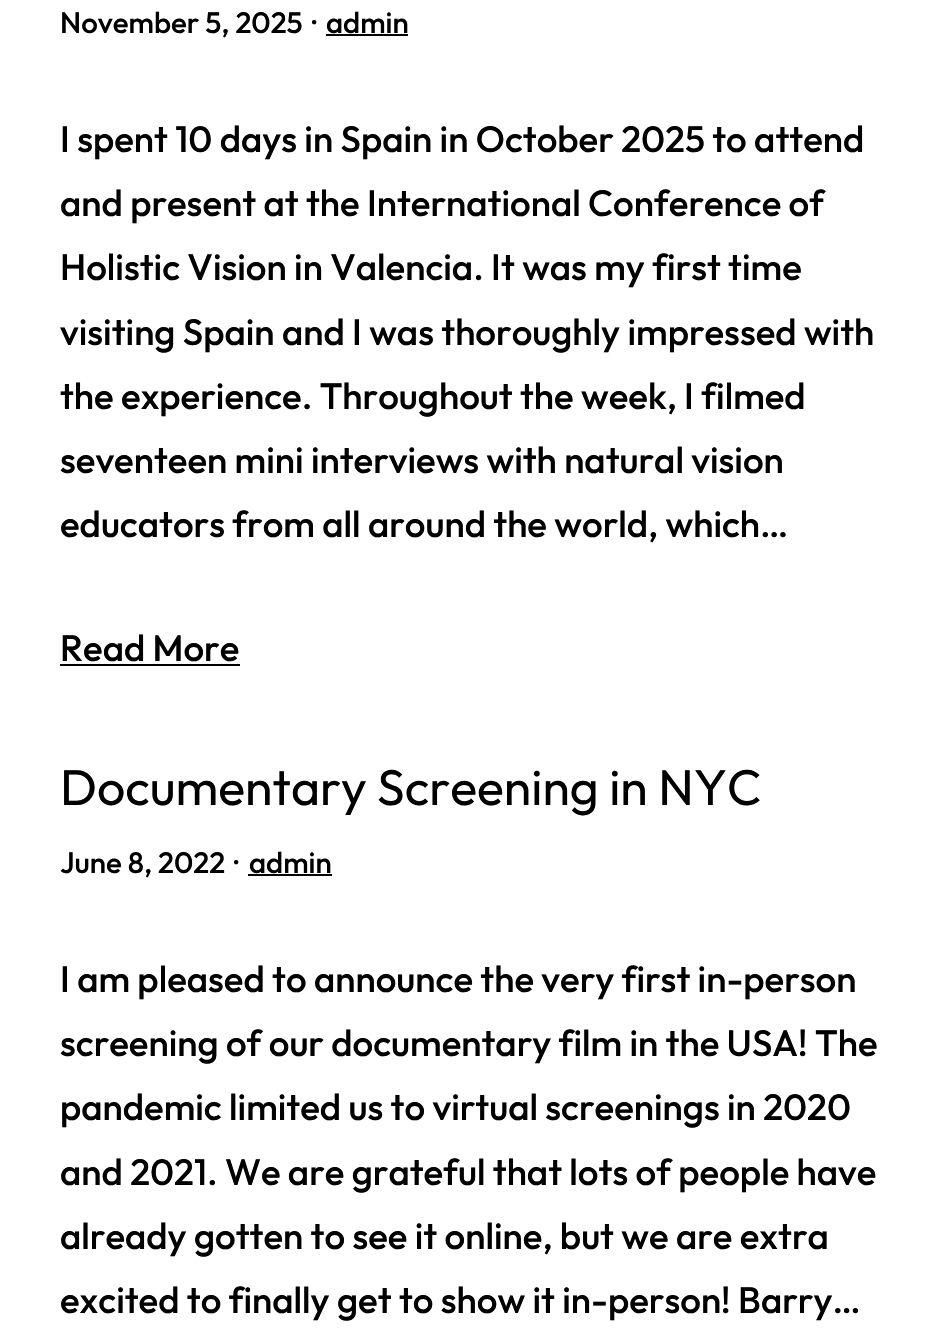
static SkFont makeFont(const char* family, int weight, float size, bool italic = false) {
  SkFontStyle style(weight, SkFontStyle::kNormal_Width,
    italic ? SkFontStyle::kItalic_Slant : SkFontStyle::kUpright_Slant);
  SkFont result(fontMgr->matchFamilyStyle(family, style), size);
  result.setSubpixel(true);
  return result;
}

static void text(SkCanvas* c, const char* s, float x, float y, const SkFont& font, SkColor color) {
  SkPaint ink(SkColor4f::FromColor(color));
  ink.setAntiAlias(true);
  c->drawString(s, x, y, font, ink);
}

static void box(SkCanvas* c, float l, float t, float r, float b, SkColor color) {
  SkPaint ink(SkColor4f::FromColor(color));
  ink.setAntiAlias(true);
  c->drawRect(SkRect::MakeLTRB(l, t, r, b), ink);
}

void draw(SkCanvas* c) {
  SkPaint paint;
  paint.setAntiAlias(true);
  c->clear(0xffffffff);
  SkFont face1 = makeFont("Outfit", 500, 29.5f);
  text(c, "November 5, 2025", 60, 33, face1, 0xff000000);
  text(c, "·", 312, 33, face1, 0xff000000);
  text(c, "admin", 326, 33, face1, 0xff000000);
  box(c, 326, 34, 408, 36, 0xff000000);
  SkFont face2 = makeFont("Outfit", 500, 36.7f);
  text(c, "I spent 10 days in Spain in October 2025 to attend", 60, 152, face2, 0xff000000);
  text(c, "and present at the International Conference of", 60, 216, face2, 0xff000000);
  text(c, "Holistic Vision in Valencia. It was my first time", 60, 280, face2, 0xff000000);
  text(c, "visiting Spain and I was thoroughly impressed with", 60, 345, face2, 0xff000000);
  text(c, "the experience. Throughout the week, I filmed", 60, 409, face2, 0xff000000);
  text(c, "seventeen mini interviews with natural vision", 60, 473, face2, 0xff000000);
  text(c, "educators from all around the world, which…", 60, 537, face2, 0xff000000);
  text(c, "Read More", 60, 661, face2, 0xff000000);
  box(c, 60, 664, 240, 666, 0xff000000);
  SkFont face3 = makeFont("Outfit", 400, 50);
  text(c, "Documentary Screening in NYC", 60, 805, face3, 0xff000000);
  text(c, "June 8, 2022", 60, 873, face1, 0xff000000);
  text(c, "·", 234, 873, face1, 0xff000000);
  text(c, "admin", 249, 873, face1, 0xff000000);
  box(c, 248, 874, 332, 876, 0xff000000);
  text(c, "I am pleased to announce the very first in-person", 60, 992, face2, 0xff000000);
  text(c, "screening of our documentary film in the USA! The", 60, 1056, face2, 0xff000000);
  text(c, "pandemic limited us to virtual screenings in 2020", 60, 1120, face2, 0xff000000);
  text(c, "and 2021. We are grateful that lots of people have", 60, 1185, face2, 0xff000000);
  text(c, "already gotten to see it online, but we are extra", 60, 1249, face2, 0xff000000);
  text(c, "excited to finally get to show it in-person! Barry…", 60, 1313, face2, 0xff000000);
}
